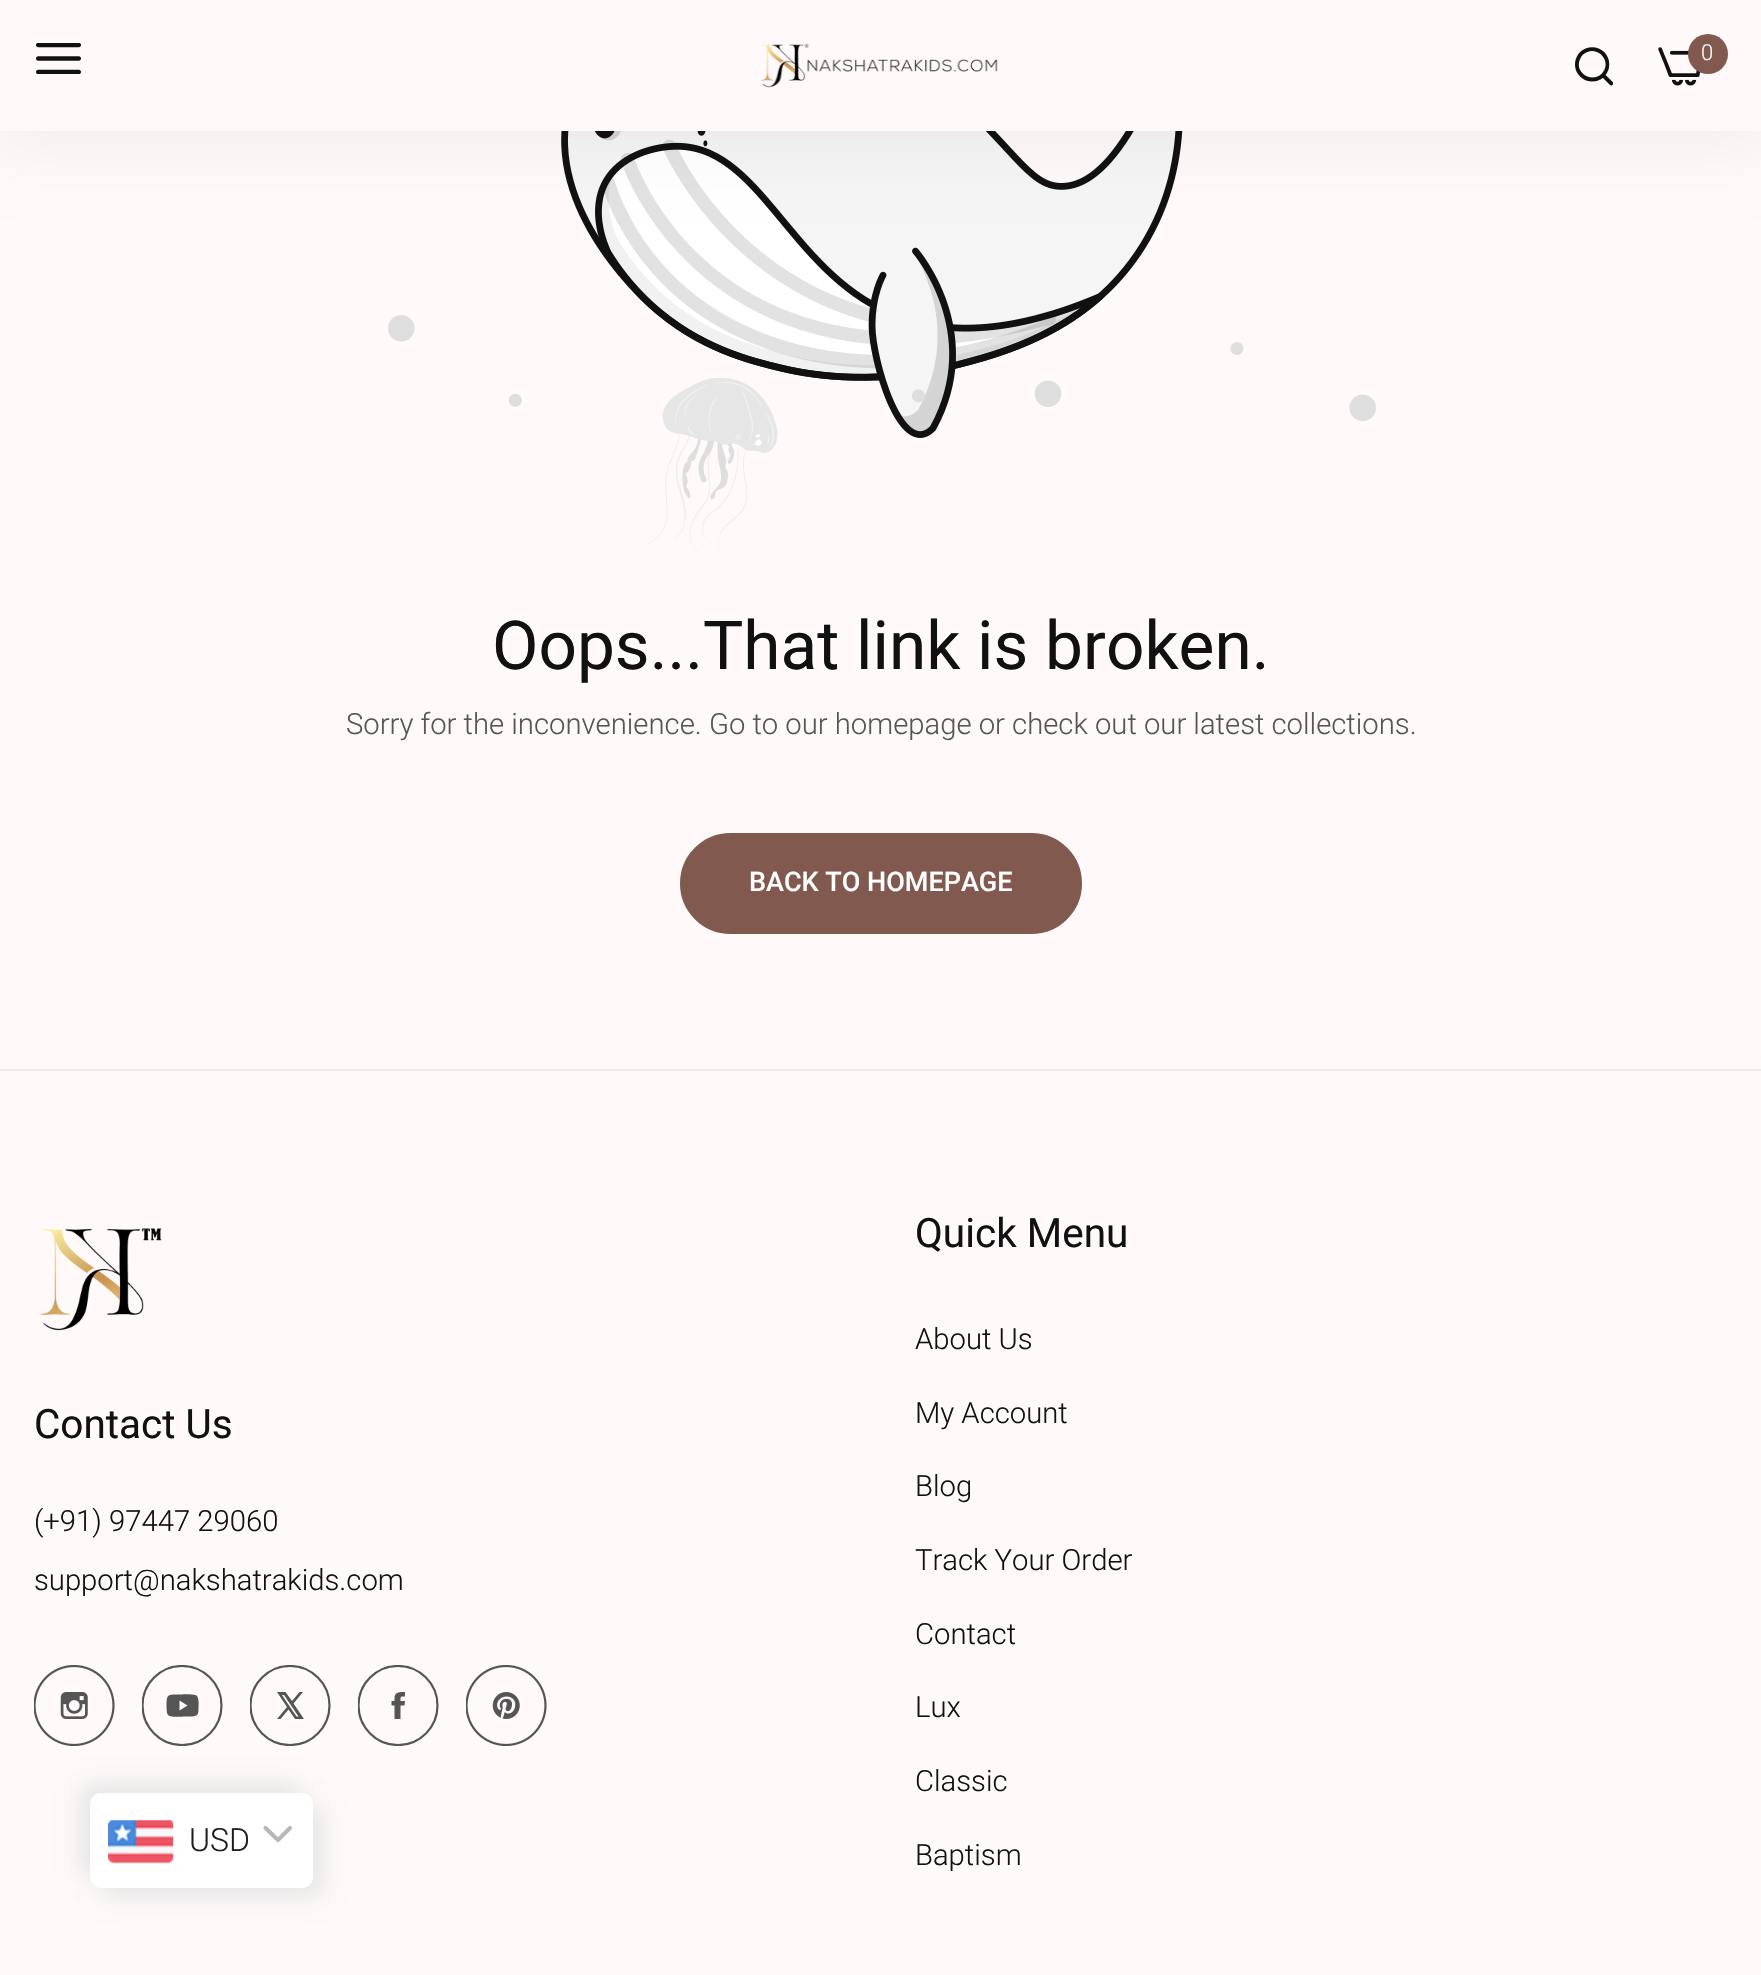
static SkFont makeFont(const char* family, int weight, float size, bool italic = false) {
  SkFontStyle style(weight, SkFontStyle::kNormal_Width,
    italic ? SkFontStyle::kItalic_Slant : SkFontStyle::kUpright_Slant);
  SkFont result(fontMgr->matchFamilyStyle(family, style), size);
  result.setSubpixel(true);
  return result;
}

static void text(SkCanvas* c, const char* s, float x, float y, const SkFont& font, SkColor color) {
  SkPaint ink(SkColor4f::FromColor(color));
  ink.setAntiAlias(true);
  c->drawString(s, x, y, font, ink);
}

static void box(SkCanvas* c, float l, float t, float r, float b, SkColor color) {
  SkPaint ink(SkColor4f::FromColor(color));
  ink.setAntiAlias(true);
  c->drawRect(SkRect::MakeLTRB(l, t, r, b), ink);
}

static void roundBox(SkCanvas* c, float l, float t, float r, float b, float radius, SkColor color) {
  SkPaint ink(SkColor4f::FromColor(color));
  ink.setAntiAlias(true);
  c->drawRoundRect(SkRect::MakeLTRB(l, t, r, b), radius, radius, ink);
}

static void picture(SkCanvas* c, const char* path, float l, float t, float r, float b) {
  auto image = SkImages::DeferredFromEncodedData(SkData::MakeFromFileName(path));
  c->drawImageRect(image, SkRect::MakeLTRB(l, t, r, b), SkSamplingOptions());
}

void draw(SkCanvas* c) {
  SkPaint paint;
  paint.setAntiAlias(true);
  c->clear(0xfffffaf9);
  picture(c, "img_05.png", 388, 131, 1376, 552);
  paint.setColor(0x0d000000);
  paint.setMaskFilter(SkMaskFilter::MakeBlur(kNormal_SkBlurStyle, 34));
  c->drawRect(SkRect::MakeLTRB(0, 11, 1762, 142), paint);
  paint.setMaskFilter(nullptr);
  box(c, 0, 0, 1761, 131, 0xfffffaf9);
  picture(c, "img_01.png", 36, 43, 81, 74);
  picture(c, "img_02.png", 761, 43, 998, 88);
  picture(c, "img_03.png", 1575, 47, 1613, 86);
  picture(c, "img_04.png", 1658, 47, 1701, 86);
  paint.setColor(0xff81594f);
  c->drawCircle(1708, 54, 20, paint);
  SkFont face1 = makeFont("Roboto", 300, 22);
  text(c, "0", 1701, 60, face1, 0xffffffff);
  SkFont face2 = makeFont("Roboto", 400, 67.5f);
  text(c, "Oops...That link is broken.", 492, 669, face2, 0xff111111);
  SkFont face3 = makeFont("Roboto", 300, 29.25f);
  text(c, "Sorry for the inconvenience. Go to our homepage or check out our latest collections.", 346, 734, face3, 0xff555555);
  c->drawRoundRect(SkRect::MakeLTRB(681, 834, 1081, 933), 49.5f, 49.5f, paint);
  paint.setStyle(SkPaint::kStroke_Style);
  paint.setStrokeWidth(2);
  c->drawRoundRect(SkRect::MakeLTRB(681, 834, 1081, 933), 49.5f, 49.5f, paint);
  SkFont face4 = makeFont("Roboto", 500, 27);
  text(c, "BACK TO HOMEPAGE", 749, 891, face4, 0xffffffff);
  box(c, 0, 1069, 1761, 1071, 0xffebebeb);
  picture(c, "img_06.png", 40, 1228, 162, 1331);
  SkFont face5 = makeFont("Roboto", 400, 40.5f);
  text(c, "Contact Us", 34, 1438, face5, 0xff111111);
  text(c, "(+91) 97447 29060", 34, 1531, face3, 0xff111111);
  text(c, "support@nakshatrakids.com", 34, 1590, face3, 0xff111111);
  picture(c, "img_07.png", 34, 1665, 115, 1746);
  c->save();
  c->clipRect(SkRect::MakeLTRB(142, 1665, 223, 1746));
  paint.setStrokeWidth(2.2f);
  paint.setColor(0xff555555);
  c->drawCircle(182, 1705.5f, 39.5f, paint);
  c->restore();
  paint.setStyle(SkPaint::kFill_Style);
  c->drawPath(SkPathBuilder().moveTo(198, 1698).cubicTo(197.5f, 1696.5f, 197, 1695.5f, 195.5f, 1695).cubicTo(192.5f, 1694, 184.5f, 1694, 181, 1694.5f).lineTo(173, 1694.5f).cubicTo(167, 1695, 167, 1697, 166.5f, 1702.5f).cubicTo(166.5f, 1706, 166.5f, 1710, 167, 1713).cubicTo(167.5f, 1714.5f, 168.5f, 1715.5f, 169.5f, 1716).cubicTo(172.5f, 1717, 179.5f, 1717, 183, 1716.5f).lineTo(192, 1716.5f).cubicTo(198, 1716, 198.5f, 1714, 198.5f, 1708.5f).cubicTo(198.5f, 1705, 199, 1701, 198, 1698).close().moveTo(179.5f, 1710.5f).lineTo(179.5f, 1700.5f).lineTo(187.5f, 1705.5f).close().detach(), paint);
  c->save();
  c->clipRect(SkRect::MakeLTRB(250, 1665, 331, 1746));
  paint.setStyle(SkPaint::kStroke_Style);
  c->drawCircle(290, 1705.5f, 39.5f, paint);
  c->restore();
  paint.setStyle(SkPaint::kFill_Style);
  c->drawPath(SkPathBuilder(SkPathFillType::kEvenOdd).moveTo(285.5f, 1692).lineTo(277, 1692).lineTo(287, 1707).lineTo(277, 1719).lineTo(280.5f, 1719).lineTo(288.5f, 1709.5f).lineTo(295, 1719).lineTo(304, 1719).lineTo(293.5f, 1703.5f).lineTo(303, 1692).lineTo(299.5f, 1692).lineTo(292, 1701).close().moveTo(289, 1705.5f).lineTo(282, 1695).lineTo(284, 1695).lineTo(298.5f, 1716.5f).lineTo(296.5f, 1716.5f).close().detach(), paint);
  c->save();
  c->clipRect(SkRect::MakeLTRB(358, 1665, 439, 1746));
  paint.setStyle(SkPaint::kStroke_Style);
  c->drawCircle(398, 1705.5f, 39.5f, paint);
  c->restore();
  paint.setStyle(SkPaint::kFill_Style);
  c->drawPath(SkPathBuilder().moveTo(394.5f, 1698).lineTo(394.5f, 1701).lineTo(391.5f, 1701).lineTo(391.5f, 1705.5f).lineTo(394.5f, 1705.5f).lineTo(394.5f, 1719).lineTo(400.5f, 1719).lineTo(400.5f, 1705.5f).lineTo(404.5f, 1705.5f).lineTo(405, 1701).lineTo(400.5f, 1701).cubicTo(400.5f, 1696.5f, 400, 1696.5f, 405, 1696.5f).lineTo(405, 1692).cubicTo(400, 1692, 394.5f, 1691.5f, 394.5f, 1698).close().detach(), paint);
  picture(c, "img_08.png", 466, 1665, 547, 1746);
  text(c, "Quick Menu", 915, 1247, face5, 0xff111111);
  text(c, "About Us", 915, 1349, face3, 0xff111111);
  text(c, "My Account", 915, 1423, face3, 0xff111111);
  text(c, "Blog", 915, 1496, face3, 0xff111111);
  text(c, "Track Your Order", 915, 1570, face3, 0xff111111);
  text(c, "Contact", 915, 1644, face3, 0xff111111);
  text(c, "Lux", 915, 1717, face3, 0xff111111);
  text(c, "Classic", 915, 1791, face3, 0xff111111);
  text(c, "Baptism", 915, 1865, face3, 0xff111111);
  paint.setColor(0xffe8e8e8);
  paint.setMaskFilter(SkMaskFilter::MakeBlur(kNormal_SkBlurStyle, 11));
  c->drawRoundRect(SkRect::MakeLTRB(79, 1782, 302, 1877), 11, 11, paint);
  paint.setMaskFilter(nullptr);
  paint.setMaskFilter(SkMaskFilter::MakeBlur(kNormal_SkBlurStyle, 11));
  c->drawRoundRect(SkRect::MakeLTRB(101, 1805, 324, 1899), 11, 11, paint);
  paint.setMaskFilter(nullptr);
  roundBox(c, 90, 1793, 313, 1888, 11, 0xffffffff);
  picture(c, "img_09.png", 108, 1820, 174, 1864);
  SkFont face6 = makeFont("Roboto", 300, 32);
  text(c, "USD", 189, 1851, face6, 0xff1e1e1e);
  paint.setStyle(SkPaint::kStroke_Style);
  paint.setStrokeWidth(4.1f);
  paint.setStrokeCap(SkPaint::kRound_Cap);
  paint.setStrokeJoin(SkPaint::kRound_Join);
  paint.setColor(0xffb7b7b7);
  c->drawPath(SkPathBuilder().moveTo(265.5f, 1828).lineTo(278, 1840).lineTo(290, 1828).detach(), paint);
}
